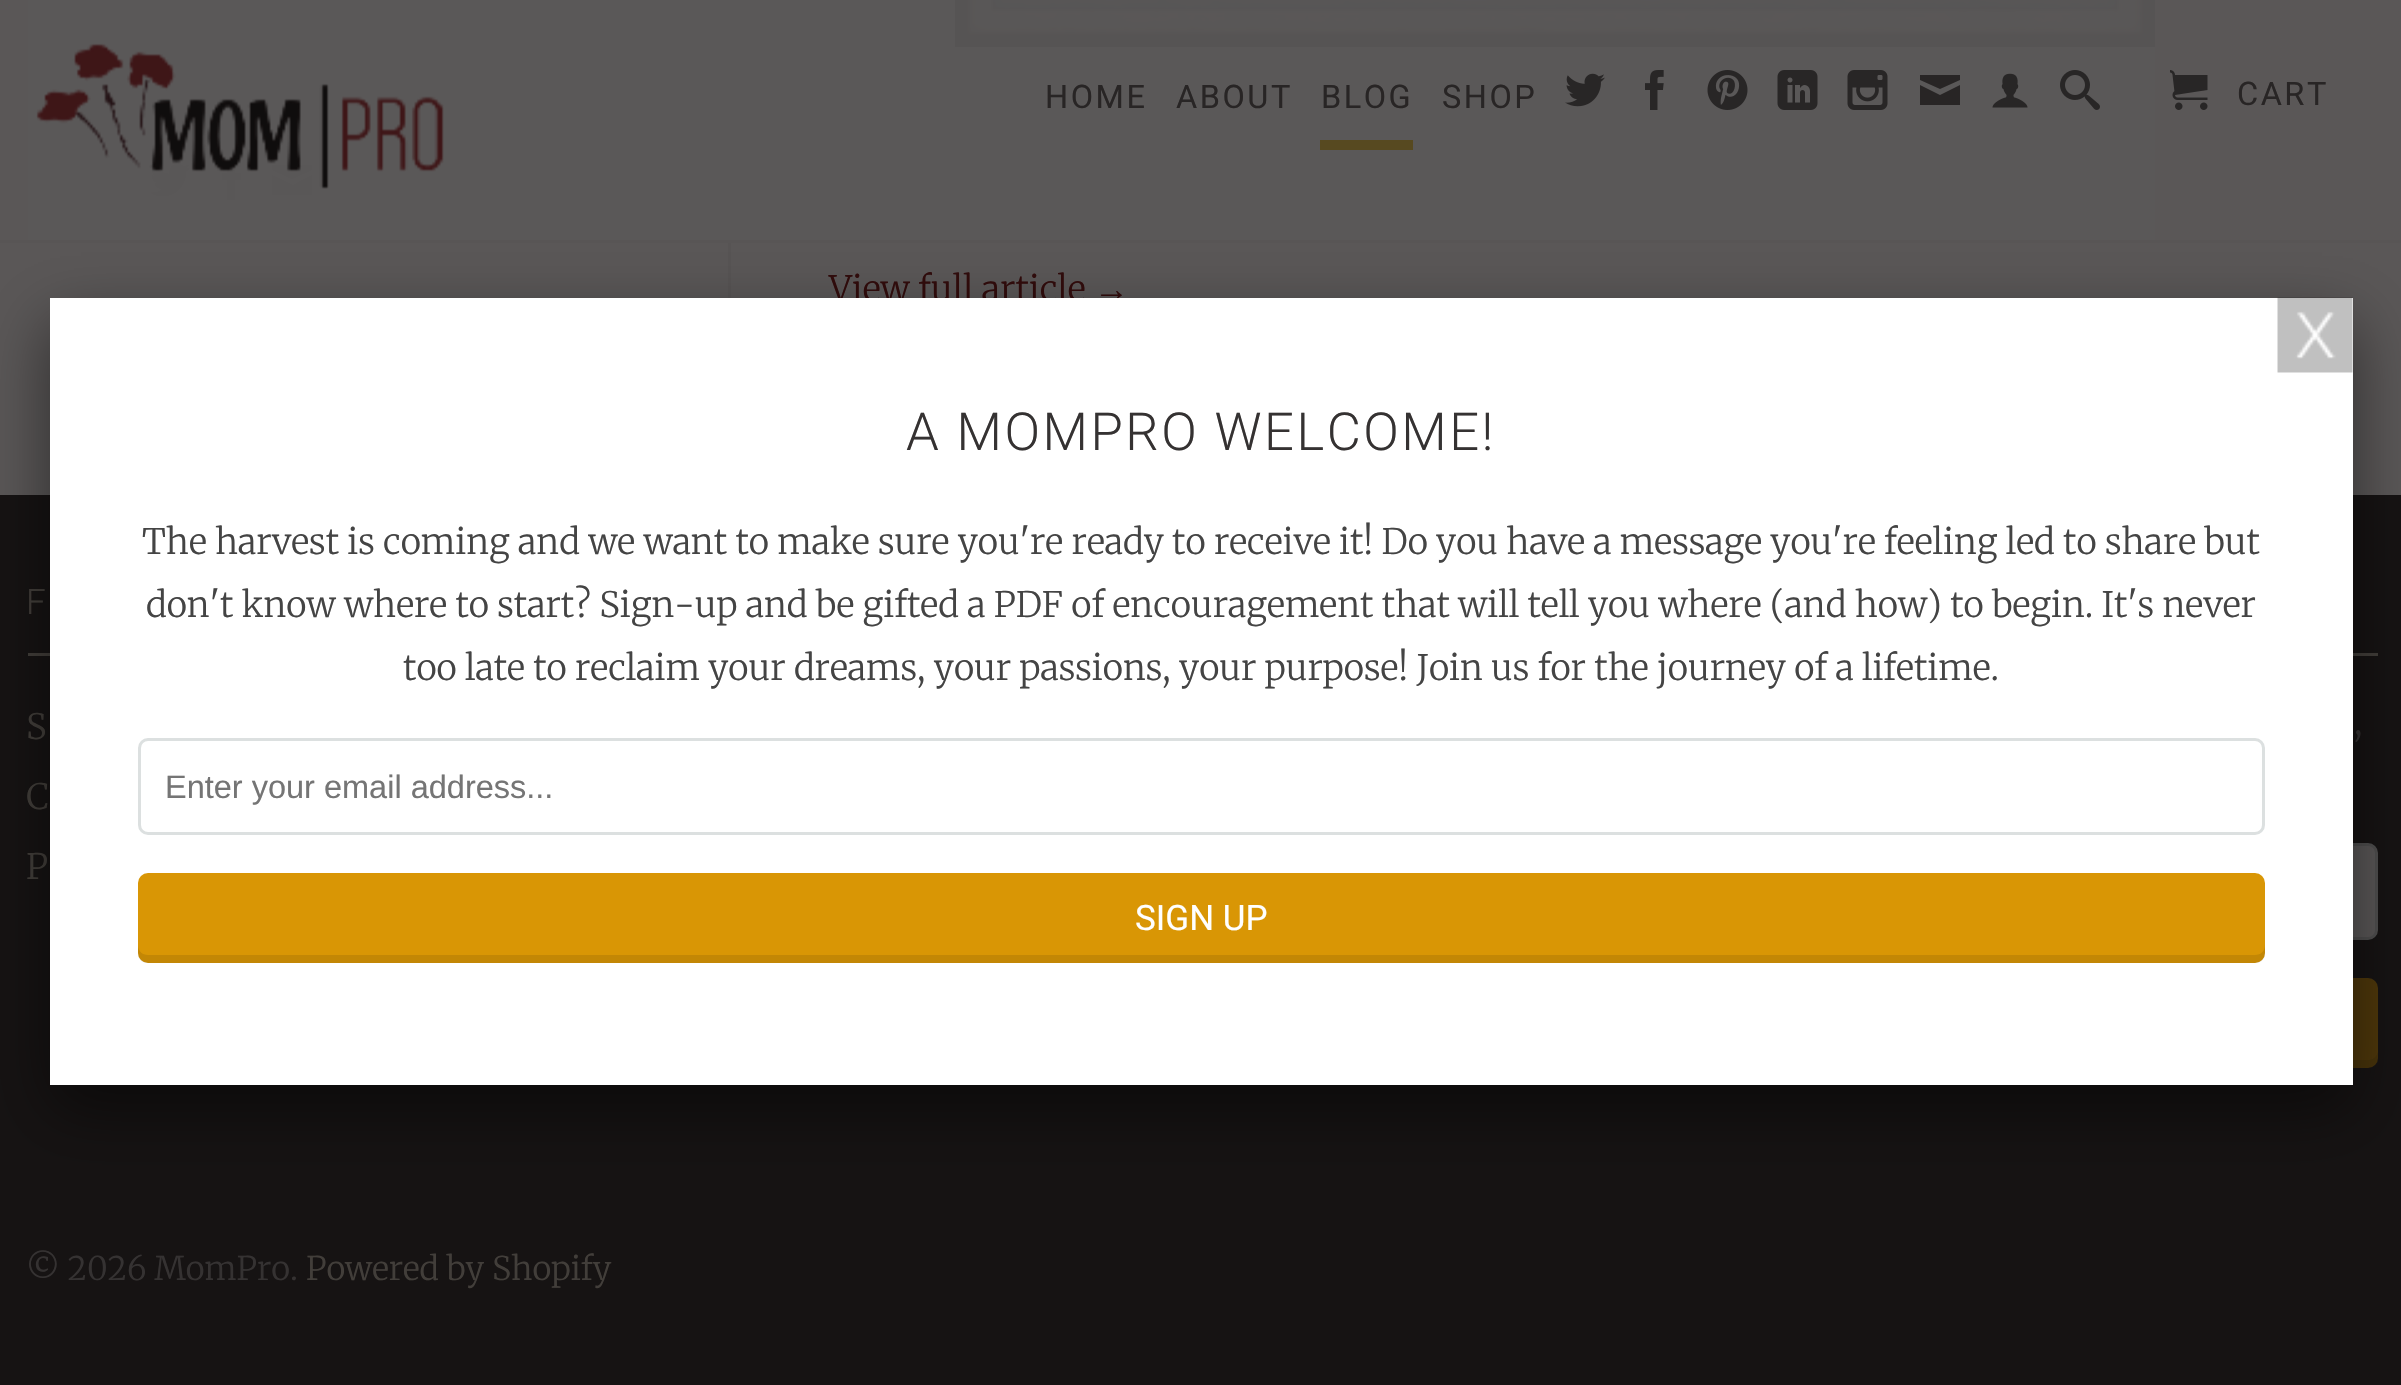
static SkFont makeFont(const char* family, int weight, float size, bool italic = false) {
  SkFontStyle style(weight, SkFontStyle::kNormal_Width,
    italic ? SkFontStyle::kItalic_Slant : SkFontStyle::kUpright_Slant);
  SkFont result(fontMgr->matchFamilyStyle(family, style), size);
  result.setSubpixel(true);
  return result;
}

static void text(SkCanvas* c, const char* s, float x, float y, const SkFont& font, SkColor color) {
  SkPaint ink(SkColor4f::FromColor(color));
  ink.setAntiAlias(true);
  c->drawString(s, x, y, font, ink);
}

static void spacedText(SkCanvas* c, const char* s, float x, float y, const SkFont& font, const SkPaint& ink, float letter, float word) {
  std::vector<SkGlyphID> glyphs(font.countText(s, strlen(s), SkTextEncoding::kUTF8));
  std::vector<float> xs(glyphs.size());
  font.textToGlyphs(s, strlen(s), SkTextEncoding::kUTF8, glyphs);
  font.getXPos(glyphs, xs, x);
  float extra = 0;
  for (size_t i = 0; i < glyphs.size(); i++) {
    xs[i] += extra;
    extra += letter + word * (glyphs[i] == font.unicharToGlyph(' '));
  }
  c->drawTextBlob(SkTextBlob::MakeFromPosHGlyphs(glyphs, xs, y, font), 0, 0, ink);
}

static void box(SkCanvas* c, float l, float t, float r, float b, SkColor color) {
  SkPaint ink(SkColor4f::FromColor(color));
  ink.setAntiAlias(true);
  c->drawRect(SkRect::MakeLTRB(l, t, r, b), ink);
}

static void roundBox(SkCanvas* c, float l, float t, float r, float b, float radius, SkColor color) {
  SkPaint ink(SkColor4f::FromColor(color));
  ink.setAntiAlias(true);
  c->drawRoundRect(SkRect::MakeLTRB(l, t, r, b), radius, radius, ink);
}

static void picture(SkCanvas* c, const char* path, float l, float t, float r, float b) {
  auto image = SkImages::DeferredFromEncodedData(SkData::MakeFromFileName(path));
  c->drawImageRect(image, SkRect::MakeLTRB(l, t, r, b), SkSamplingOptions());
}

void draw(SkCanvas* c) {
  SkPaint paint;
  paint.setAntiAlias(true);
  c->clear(0xff5a5757);
  paint.setStyle(SkPaint::kStroke_Style);
  paint.setStrokeWidth(3);
  paint.setColor(0xff575454);
  c->drawRoundRect(SkRect::MakeLTRB(29.5f, -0.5f, 326.5f, 78.5f), 8.5f, 8.5f, paint);
  c->drawRoundRect(SkRect::MakeLTRB(356.5f, -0.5f, 576.5f, 78.5f), 8.5f, 8.5f, paint);
  box(c, 28, 123, 728, 126, 0xff575454);
  picture(c, "img_10.png", 150, 163, 190, 197);
  picture(c, "img_11.png", 222, 160, 242, 200);
  paint.setStyle(SkPaint::kFill_Style);
  paint.setColor(0xff3c3c3e);
  c->drawPath(SkPathBuilder().moveTo(292, 179).lineTo(272, 170).lineTo(272, 165).lineTo(312, 165).lineTo(312, 170).close().moveTo(293, 185).lineTo(312, 175).lineTo(312, 195).lineTo(272, 195).lineTo(272, 175).close().detach(), paint);
  box(c, 728, 0, 731, 298, 0xff575454);
  picture(c, "img_12.png", 955, 0, 2155, 47);
  box(c, 28, 0, 2155, 243, 0xf25a5757);
  box(c, 0, 240, 2401, 243, 0xf2575454);
  picture(c, "img_01.png", 36, 43, 444, 189);
  SkFont face1 = makeFont("Roboto", 400, 32.5f);
  paint.setColor(0xff282525);
  spacedText(c, "HOME", 1045, 108, face1, paint, 2.5f, 0);
  spacedText(c, "ABOUT", 1176, 108, face1, paint, 2.5f, 0);
  spacedText(c, "BLOG", 1321, 108, face1, paint, 2.5f, 0);
  box(c, 1320, 140, 1413, 150, 0xc255450f);
  spacedText(c, "SHOP", 1442, 108, face1, paint, 2.5f, 0);
  picture(c, "img_02.png", 1565, 73, 1605, 107);
  picture(c, "img_03.png", 1645, 70, 1664, 110);
  picture(c, "img_04.png", 1707, 70, 1748, 110);
  picture(c, "img_05.png", 1777, 70, 1818, 110);
  picture(c, "img_06.png", 1847, 70, 1888, 110);
  c->drawPath(SkPathBuilder().moveTo(1940, 89).lineTo(1920, 80).lineTo(1920, 75).lineTo(1960, 75).lineTo(1960, 80).close().moveTo(1940, 95).lineTo(1960, 85).lineTo(1960, 105).lineTo(1920, 105).lineTo(1920, 85).close().detach(), paint);
  picture(c, "img_07.png", 1992, 73, 2028, 108);
  picture(c, "img_08.png", 2060, 70, 2100, 110);
  picture(c, "img_09.png", 2170, 70, 2208, 110);
  spacedText(c, "CART", 2237, 105, face1, paint, 2.5f, 0);
  SkFont face2 = makeFont("Merriweather", 300, 35);
  text(c, "View full article", 829, 301, face2, 0xff310c0c);
  SkFont face3 = makeFont("Liberation Serif", 400, 35);
  text(c, "→", 1094, 301, face3, 0xff310c0c);
  box(c, 0, 495, 2401, 1385, 0xff161313);
  box(c, 28, 653, 50, 656, 0xff423e3a);
  SkFont face4 = makeFont("Roboto", 300, 35);
  paint.setColor(0xff423e3a);
  spacedText(c, "F", 26, 614, face4, paint, 2.5f, 0);
  text(c, "S", 26, 739, face2, 0xff423e3a);
  text(c, "C", 26, 809, face2, 0xff423e3a);
  text(c, "P", 26, 879, face2, 0xff423e3a);
  box(c, 2353, 653, 2378, 656, 0xff423e3a);
  text(c, ",", 2354, 734, face2, 0xff353232);
  paint.setColor(0xff5a5757);
  c->drawRoundRect(SkRect::MakeLTRB(1829.5f, 844.5f, 2376.5f, 938.5f), 8.5f, 8.5f, paint);
  paint.setStyle(SkPaint::kStroke_Style);
  paint.setColor(0xff4f4e4e);
  c->drawRoundRect(SkRect::MakeLTRB(1829.5f, 844.5f, 2376.5f, 938.5f), 8.5f, 8.5f, paint);
  roundBox(c, 1828, 978, 2378, 1068, 10, 0xff4e370a);
  paint.setStyle(SkPaint::kFill_Style);
  paint.setColor(0x1a0b0808);
  c->drawPath(SkPathBuilder().moveTo(1828, 1050).lineTo(1828, 1058).cubicTo(1828, 1064, 1832, 1068, 1838, 1068).lineTo(2368, 1068).cubicTo(2374, 1068, 2378, 1064, 2378, 1058).lineTo(2378, 1050).cubicTo(2378, 1056, 2373, 1060, 2368, 1060).lineTo(1838, 1060).cubicTo(1832, 1060, 1828, 1056, 1828, 1050).close().detach(), paint);
  SkFont face5 = makeFont("Merriweather", 300, 32.5f);
  text(c, "© 2026 MomPro.", 26, 1280, face5, 0xff353232);
  text(c, "Powered by Shopify", 306, 1280, face5, 0xff423e3a);
  paint.setColor(0x80000000);
  paint.setMaskFilter(SkMaskFilter::MakeBlur(kNormal_SkBlurStyle, 31));
  c->drawRect(SkRect::MakeLTRB(50, 323, 2353, 1110), paint);
  paint.setMaskFilter(nullptr);
  box(c, 50, 298, 2353, 1085, 0xffffffff);
  picture(c, "img_13.png", 2277, 297, 2353, 373);
  SkFont face6 = makeFont("Roboto", 300, 52.5f);
  paint.setColor(0xff353232);
  spacedText(c, "A MOMPRO WELCOME!", 906, 450, face6, paint, 2.5f, 0);
  text(c, "The harvest is coming and we want to make sure you're ready to receive it! Do you have a message you're feeling led to share but", 142, 554, face2, 0xff444444);
  text(c, "don't know where to start? Sign-up and be gifted a PDF of encouragement that will tell you where (and how) to begin. It's never", 146, 617, face2, 0xff444444);
  text(c, "too late to reclaim your dreams, your passions, your purpose! Join us for the journey of a lifetime.", 403, 680, face2, 0xff444444);
  paint.setStyle(SkPaint::kStroke_Style);
  paint.setColor(0xffdce0e0);
  c->drawRoundRect(SkRect::MakeLTRB(139.5f, 739.5f, 2263.5f, 833.5f), 8.5f, 8.5f, paint);
  SkFont face7 = makeFont("Liberation Sans", 400, 32.5f);
  text(c, "Enter your email address...", 165, 798, face7, 0xff757575);
  roundBox(c, 138, 873, 2265, 963, 10, 0xffd99605);
  paint.setStyle(SkPaint::kFill_Style);
  paint.setColor(0x1a000000);
  c->drawPath(SkPathBuilder().moveTo(138, 945).lineTo(138, 953).cubicTo(138, 959, 142, 963, 148, 963).lineTo(2255, 963).cubicTo(2261, 963, 2265, 959, 2265, 953).lineTo(2265, 945).cubicTo(2265, 951, 2261, 955, 2255, 955).lineTo(148, 955).cubicTo(142, 955, 138, 951, 138, 945).close().detach(), paint);
  SkFont face8 = makeFont("Roboto", 400, 35);
  text(c, "SIGN UP", 1135, 930, face8, 0xffffffff);
}
